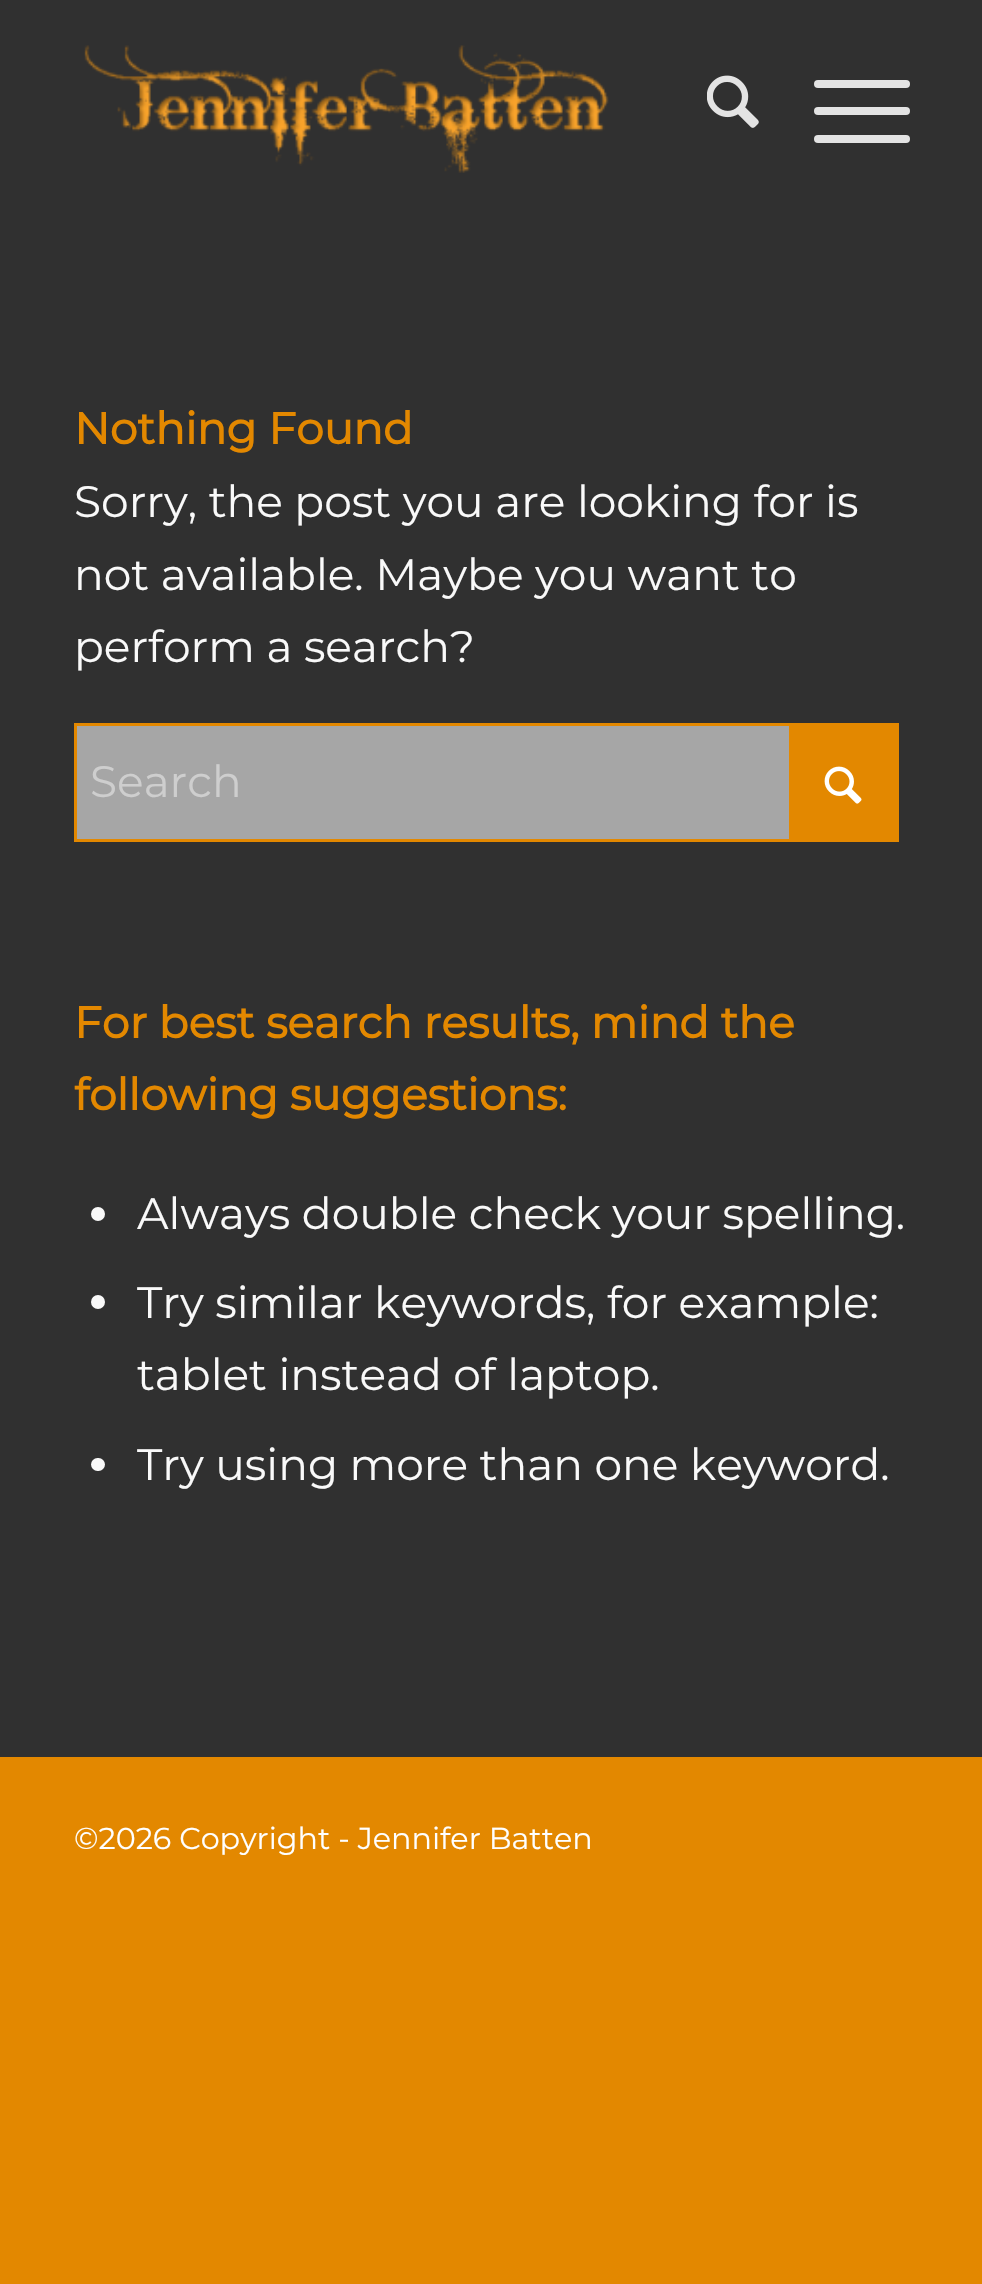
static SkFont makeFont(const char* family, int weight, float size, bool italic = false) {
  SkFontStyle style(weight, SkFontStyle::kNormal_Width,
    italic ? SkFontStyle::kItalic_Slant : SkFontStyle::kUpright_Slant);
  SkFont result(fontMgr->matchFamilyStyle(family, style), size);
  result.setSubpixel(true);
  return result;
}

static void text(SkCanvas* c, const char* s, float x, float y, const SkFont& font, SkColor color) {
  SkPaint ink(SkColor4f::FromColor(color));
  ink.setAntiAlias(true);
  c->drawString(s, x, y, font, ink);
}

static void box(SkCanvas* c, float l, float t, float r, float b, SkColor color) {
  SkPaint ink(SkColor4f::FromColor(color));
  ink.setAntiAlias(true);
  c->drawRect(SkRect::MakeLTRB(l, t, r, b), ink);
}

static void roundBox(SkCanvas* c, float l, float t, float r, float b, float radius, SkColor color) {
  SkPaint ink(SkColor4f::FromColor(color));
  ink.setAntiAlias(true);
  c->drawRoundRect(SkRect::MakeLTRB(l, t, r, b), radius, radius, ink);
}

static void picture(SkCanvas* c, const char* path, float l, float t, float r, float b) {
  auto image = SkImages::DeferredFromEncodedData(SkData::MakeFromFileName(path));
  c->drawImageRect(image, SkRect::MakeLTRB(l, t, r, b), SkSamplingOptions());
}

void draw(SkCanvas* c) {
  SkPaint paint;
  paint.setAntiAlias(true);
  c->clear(0xffe38800);
  box(c, 0, 0, 982, 1757, 0xff303030);
  picture(c, "img_01.png", 84, 45, 609, 173);
  picture(c, "img_02.png", 707, 75, 759, 128);
  roundBox(c, 814, 107, 910, 115, 4, 0xffe3e3e3);
  roundBox(c, 814, 80, 910, 88, 4, 0xffe3e3e3);
  roundBox(c, 814, 135, 910, 143, 4, 0xffe3e3e3);
  SkFont face1 = makeFont("Montserrat", 700, 44);
  text(c, "Nothing Found", 74, 444, face1, 0xffe38800);
  SkFont face2 = makeFont("Montserrat", 100, 44);
  text(c, "Sorry, the post you are looking for is", 74, 517, face2, 0xfff9f9f9);
  text(c, "not available. Maybe you want to", 74, 590, face2, 0xfff9f9f9);
  text(c, "perform a search?", 74, 662, face2, 0xfff9f9f9);
  box(c, 77, 726, 789, 839, 0xffa6a6a6);
  paint.setStyle(SkPaint::kStroke_Style);
  paint.setStrokeWidth(3);
  paint.setColor(0xffe38800);
  c->drawRect(SkRect::MakeLTRB(75.5f, 724.5f, 897.5f, 840.5f), paint);
  text(c, "Search", 90, 797, face2, 0xffcecece);
  box(c, 789, 726, 896, 839, 0xffe38800);
  picture(c, "img_03.png", 824, 766, 862, 804);
  text(c, "For best search results, mind the", 74, 1038, face1, 0xffe38800);
  text(c, "following suggestions:", 74, 1110, face1, 0xffe38800);
  paint.setStyle(SkPaint::kFill_Style);
  paint.setColor(0xfff9f9f9);
  c->drawCircle(98, 1214, 7, paint);
  text(c, "Always double check your spelling.", 137, 1229, face2, 0xfff9f9f9);
  c->drawCircle(98, 1302, 7, paint);
  text(c, "Try similar keywords, for example:", 137, 1318, face2, 0xfff9f9f9);
  text(c, "tablet instead of laptop.", 137, 1390, face2, 0xfff9f9f9);
  roundBox(c, 91, 1458, 105, 1471, 6.5f, 0xfff9f9f9);
  text(c, "Try using more than one keyword.", 137, 1480, face2, 0xfff9f9f9);
  SkFont face3 = makeFont("Montserrat", 100, 30.25f);
  text(c, "©2026 Copyright - Jennifer Batten", 74, 1849, face3, 0xffffffff);
}
